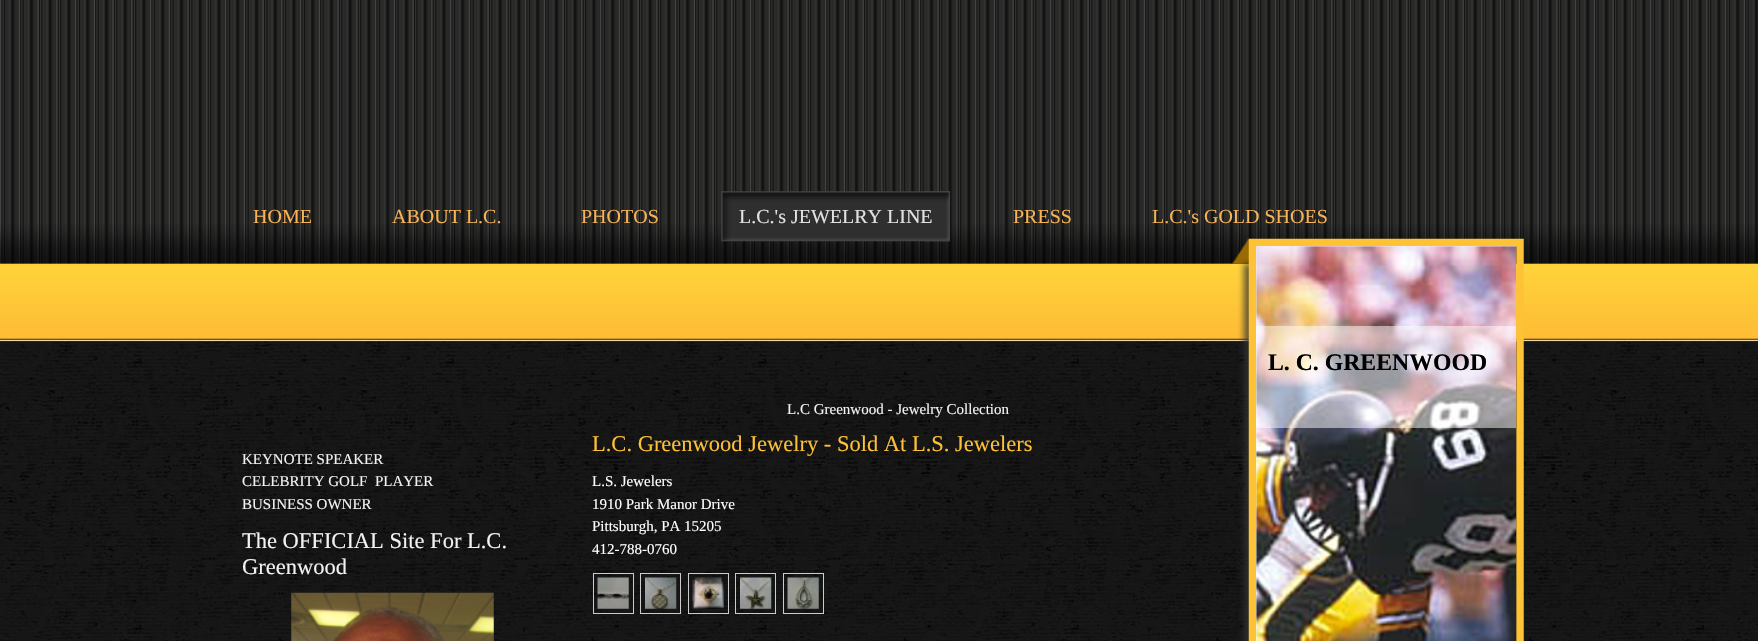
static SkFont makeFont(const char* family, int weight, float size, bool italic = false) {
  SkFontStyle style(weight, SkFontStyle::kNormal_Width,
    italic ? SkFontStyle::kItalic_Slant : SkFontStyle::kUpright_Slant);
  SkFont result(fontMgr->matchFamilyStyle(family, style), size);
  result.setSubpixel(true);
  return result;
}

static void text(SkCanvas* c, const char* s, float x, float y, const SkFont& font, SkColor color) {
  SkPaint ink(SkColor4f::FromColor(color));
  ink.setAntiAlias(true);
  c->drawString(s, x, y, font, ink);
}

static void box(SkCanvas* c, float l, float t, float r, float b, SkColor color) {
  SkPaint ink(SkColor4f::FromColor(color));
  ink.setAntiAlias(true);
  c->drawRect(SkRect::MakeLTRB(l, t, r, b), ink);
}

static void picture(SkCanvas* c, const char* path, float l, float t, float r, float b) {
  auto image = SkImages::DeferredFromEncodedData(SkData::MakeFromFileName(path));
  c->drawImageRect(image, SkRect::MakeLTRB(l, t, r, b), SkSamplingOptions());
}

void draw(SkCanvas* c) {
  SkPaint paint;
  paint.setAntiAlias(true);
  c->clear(0xffffffff);
  picture(c, "img_01.png", 0, 0, 1758, 342);
  SkFont face1 = makeFont("Liberation Serif", 400, 20);
  text(c, "HOME", 253, 223, face1, 0xfff8b356);
  text(c, "ABOUT L.C.", 392, 223, face1, 0xfff8b356);
  text(c, "PHOTOS", 581, 223, face1, 0xfff8b356);
  picture(c, "img_04.png", 0, 224, 1758, 342);
  picture(c, "img_02.png", 721, 191, 950, 242);
  picture(c, "img_03.png", 925, 191, 950, 242);
  text(c, "L.C.'s JEWELRY LINE", 739, 223, face1, 0xffe1e2e1);
  text(c, "PRESS", 1013, 223, face1, 0xfff8b356);
  text(c, "L.C.'s GOLD SHOES", 1152, 223, face1, 0xfff8b356);
  picture(c, "img_05.png", 0, 341, 1758, 641);
  picture(c, "img_06.png", 1232, 238, 1524, 641);
  box(c, 1256, 246, 1516, 641, 0xffeeeeee);
  picture(c, "img_07.png", 1256, 246, 1517, 641);
  box(c, 1256, 326, 1516, 428, 0x80ffffff);
  SkFont face2 = makeFont("Liberation Serif", 700, 23.75f);
  text(c, "L. C. GREENWOOD", 1268, 370, face2, 0xff000000);
  SkFont face3 = makeFont("Liberation Serif", 400, 15);
  text(c, "KEYNOTE SPEAKER", 242, 464, face3, 0xfff2f2f2);
  text(c, "CELEBRITY GOLF  PLAYER", 242, 486, face3, 0xfff2f2f2);
  text(c, "BUSINESS OWNER", 242, 509, face3, 0xfff2f2f2);
  SkFont face4 = makeFont("Liberation Serif", 400, 22.5f);
  text(c, "The OFFICIAL Site For L.C.", 242, 548, face4, 0xfff2f2f2);
  text(c, "Greenwood", 242, 574, face4, 0xfff2f2f2);
  picture(c, "img_08.png", 291, 592, 494, 641);
  text(c, "L.C Greenwood - Jewelry Collection", 787, 414, face3, 0xfff2f2f2);
  text(c, "L.C. Greenwood Jewelry - Sold At L.S. Jewelers", 592, 451, face4, 0xfffec036);
  text(c, "L.S. Jewelers", 592, 486, face3, 0xffffffff);
  text(c, "1910 Park Manor Drive", 592, 509, face3, 0xffffffff);
  text(c, "Pittsburgh, PA 15205", 592, 531, face3, 0xffffffff);
  text(c, "412-788-0760", 592, 554, face3, 0xffffffff);
  paint.setStyle(SkPaint::kStroke_Style);
  paint.setStrokeWidth(1);
  paint.setColor(0xffcccccc);
  c->drawRect(SkRect::MakeLTRB(593.5f, 573.5f, 633.5f, 613.5f), paint);
  picture(c, "img_09.png", 597, 577, 629, 609);
  c->drawRect(SkRect::MakeLTRB(640.5f, 573.5f, 680.5f, 613.5f), paint);
  picture(c, "img_10.png", 645, 577, 677, 609);
  c->drawRect(SkRect::MakeLTRB(688.5f, 573.5f, 728.5f, 613.5f), paint);
  picture(c, "img_11.png", 692, 577, 724, 609);
  c->drawRect(SkRect::MakeLTRB(735.5f, 573.5f, 775.5f, 613.5f), paint);
  picture(c, "img_12.png", 740, 577, 772, 609);
  c->drawRect(SkRect::MakeLTRB(783.5f, 573.5f, 823.5f, 613.5f), paint);
  picture(c, "img_13.png", 787, 577, 819, 609);
}
